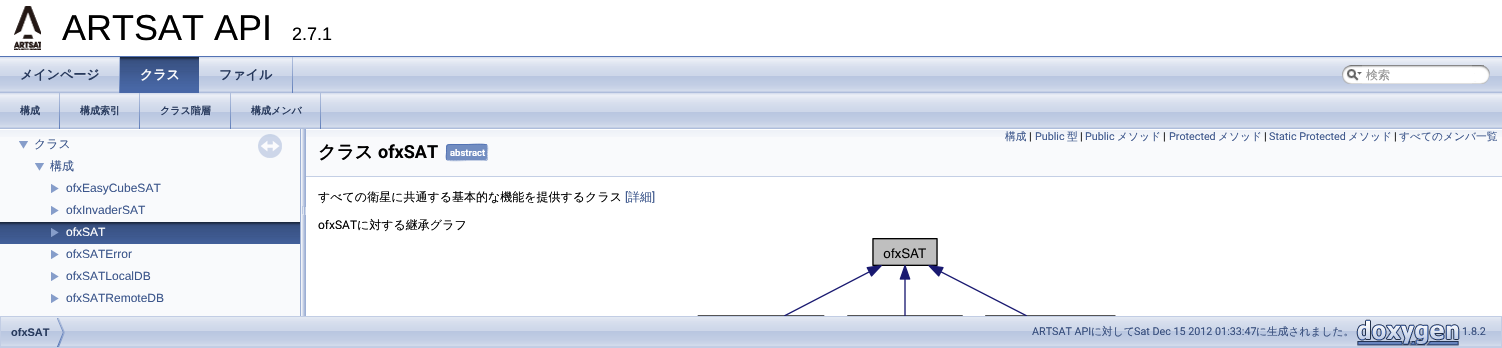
static SkFont makeFont(const char* family, int weight, float size, bool italic = false) {
  SkFontStyle style(weight, SkFontStyle::kNormal_Width,
    italic ? SkFontStyle::kItalic_Slant : SkFontStyle::kUpright_Slant);
  SkFont result(fontMgr->matchFamilyStyle(family, style), size);
  result.setSubpixel(true);
  return result;
}

static void text(SkCanvas* c, const char* s, float x, float y, const SkFont& font, SkColor color) {
  SkPaint ink(SkColor4f::FromColor(color));
  ink.setAntiAlias(true);
  c->drawString(s, x, y, font, ink);
}

static void box(SkCanvas* c, float l, float t, float r, float b, SkColor color) {
  SkPaint ink(SkColor4f::FromColor(color));
  ink.setAntiAlias(true);
  c->drawRect(SkRect::MakeLTRB(l, t, r, b), ink);
}

static void roundBox(SkCanvas* c, float l, float t, float r, float b, float radius, SkColor color) {
  SkPaint ink(SkColor4f::FromColor(color));
  ink.setAntiAlias(true);
  c->drawRoundRect(SkRect::MakeLTRB(l, t, r, b), radius, radius, ink);
}

static void picture(SkCanvas* c, const char* path, float l, float t, float r, float b) {
  auto image = SkImages::DeferredFromEncodedData(SkData::MakeFromFileName(path));
  c->drawImageRect(image, SkRect::MakeLTRB(l, t, r, b), SkSamplingOptions());
}

void draw(SkCanvas* c) {
  SkPaint paint;
  paint.setAntiAlias(true);
  c->clear(0xffffffff);
  box(c, 0, 56, 1502, 57, 0xff5373b4);
  picture(c, "img_01.png", 14, 6, 41, 50);
  SkFont face1 = makeFont("Liberation Sans", 400, 36);
  text(c, "ARTSAT API", 62, 40, face1, 0xff000000);
  SkFont face2 = makeFont("Liberation Sans", 400, 18);
  text(c, "2.7.1", 292, 40, face2, 0xff000000);
  picture(c, "img_02.png", 0, 57, 1502, 93);
  picture(c, "img_03.png", 119, 57, 120, 93);
  SkFont face3 = makeFont("WenQuanYi Zen Hei", 700, 13);
  text(c, "メインページ", 20, 79, face3, 0xff283a5d);
  picture(c, "img_04.png", 120, 57, 199, 93);
  text(c, "クラス", 140, 79, face3, 0xffffffff);
  picture(c, "img_03.png", 292, 57, 293, 93);
  text(c, "ファイル", 219, 79, face3, 0xff283a5d);
  picture(c, "img_05.png", 1342, 65, 1362, 84);
  picture(c, "img_06.png", 1347, 69, 1362, 81);
  picture(c, "img_07.png", 1362, 65, 1484, 84);
  SkFont face4 = makeFont("WenQuanYi Zen Hei", 500, 12);
  text(c, "検索", 1366, 79, face4, 0xff909090);
  picture(c, "img_08.png", 1472, 65, 1490, 84);
  picture(c, "img_02.png", 0, 93, 1502, 129);
  picture(c, "img_03.png", 59, 93, 60, 129);
  SkFont face5 = makeFont("WenQuanYi Zen Hei", 700, 10);
  text(c, "構成", 20, 114, face5, 0xff283a5d);
  picture(c, "img_03.png", 139, 93, 140, 129);
  text(c, "構成索引", 80, 114, face5, 0xff283a5d);
  picture(c, "img_03.png", 230, 93, 231, 129);
  text(c, "クラス階層", 160, 114, face5, 0xff283a5d);
  picture(c, "img_03.png", 320, 93, 321, 129);
  text(c, "構成メンバ", 251, 114, face5, 0xff283a5d);
  box(c, 0, 137, 300, 316, 0xfff9fafc);
  picture(c, "img_09.png", 0, 129, 300, 137);
  picture(c, "img_10.png", 19, 141, 28, 149);
  text(c, "クラス", 34, 148, face4, 0xff3d578c);
  picture(c, "img_10.png", 35, 163, 44, 171);
  text(c, "構成", 50, 170, face4, 0xff3d578c);
  picture(c, "img_11.png", 51, 184, 59, 193);
  SkFont face6 = makeFont("Liberation Sans", 400, 12);
  text(c, "ofxEasyCubeSAT", 66, 192, face6, 0xff3d578c);
  picture(c, "img_11.png", 51, 206, 59, 215);
  text(c, "ofxInvaderSAT", 66, 214, face6, 0xff3d578c);
  picture(c, "img_12.png", 0, 222, 300, 244);
  picture(c, "img_13.png", 51, 228, 59, 237);
  text(c, "ofxSAT", 66, 236, face6, 0xffffffff);
  picture(c, "img_11.png", 51, 250, 59, 259);
  text(c, "ofxSATError", 66, 258, face6, 0xff3d578c);
  picture(c, "img_11.png", 51, 272, 59, 281);
  text(c, "ofxSATLocalDB", 66, 280, face6, 0xff3d578c);
  picture(c, "img_11.png", 51, 294, 59, 303);
  text(c, "ofxSATRemoteDB", 66, 302, face6, 0xff3d578c);
  picture(c, "img_14.png", 258, 134, 282, 158);
  picture(c, "img_15.png", 300, 129, 306, 316);
  box(c, 306, 137, 1502, 176, 0xfff9fafc);
  picture(c, "img_16.png", 306, 129, 1502, 137);
  box(c, 306, 176, 1502, 177, 0xffc4cfe5);
  SkFont face7 = makeFont("WenQuanYi Zen Hei", 500, 10.75f);
  text(c, "構成", 1005, 140, face7, 0xff3d578c);
  SkFont face8 = makeFont("Roboto", 400, 10.75f);
  text(c, "|", 1029, 140, face8, 0xff000000);
  text(c, "Public", 1035, 140, face8, 0xff3d578c);
  text(c, "型", 1067, 140, face7, 0xff3d578c);
  text(c, "|", 1080, 140, face8, 0xff000000);
  text(c, "Public", 1085, 140, face8, 0xff3d578c);
  text(c, "メソッド", 1117, 140, face7, 0xff3d578c);
  text(c, "|", 1163, 140, face8, 0xff000000);
  text(c, "Protected", 1169, 140, face8, 0xff3d578c);
  text(c, "メソッド", 1218, 140, face7, 0xff3d578c);
  text(c, "|", 1264, 140, face8, 0xff000000);
  text(c, "Static Protected", 1269, 140, face8, 0xff3d578c);
  text(c, "メソッド", 1348, 140, face7, 0xff3d578c);
  text(c, "|", 1394, 140, face8, 0xff000000);
  text(c, "すべてのメンバ一覧", 1399, 140, face7, 0xff3d578c);
  SkFont face9 = makeFont("WenQuanYi Zen Hei", 700, 18);
  text(c, "クラス", 318, 158, face9, 0xff000000);
  SkFont face10 = makeFont("Roboto", 700, 18);
  text(c, "ofxSAT", 378, 158, face10, 0xff000000);
  roundBox(c, 446, 144, 488, 161, 3, 0xff728dc1);
  paint.setStyle(SkPaint::kStroke_Style);
  paint.setStrokeWidth(1);
  paint.setColor(0xffc4cfe5);
  c->drawPath(SkPathBuilder().moveTo(487, 145).cubicTo(488.5f, 147, 487.5f, 150.5f, 487.5f, 152.5f).cubicTo(487.5f, 161.5f, 488, 160.5f, 479, 160.5f).lineTo(467, 160.5f).cubicTo(464, 160.5f, 449, 161.5f, 447, 160).detach(), paint);
  paint.setColor(0xff5373b4);
  c->drawPath(SkPathBuilder().moveTo(447, 160).cubicTo(445.5f, 158, 446.5f, 154.5f, 446.5f, 152.5f).cubicTo(446.5f, 143.5f, 446, 144.5f, 455, 144.5f).lineTo(467, 144.5f).cubicTo(470, 144.5f, 485, 143.5f, 487, 145).detach(), paint);
  SkFont face11 = makeFont("Roboto", 700, 9.5f);
  text(c, "abstract", 450, 156, face11, 0xffffffff);
  text(c, "すべての衛星に共通する基本的な機能を提供するクラス", 318, 201, face4, 0xff000000);
  SkFont face12 = makeFont("Roboto", 400, 12);
  text(c, "[", 625, 201, face12, 0xff3d578c);
  text(c, "詳細", 628, 201, face4, 0xff3d578c);
  text(c, "]", 652, 201, face12, 0xff3d578c);
  text(c, "ofxSAT", 318, 229, face12, 0xff000000);
  text(c, "に対する継承グラフ", 357, 229, face4, 0xff000000);
  picture(c, "img_17.png", 697, 238, 1116, 316);
  picture(c, "img_18.png", 1, 317, 1501, 347);
  paint.setColor(0xffc2cde4);
  c->drawRect(SkRect::MakeLTRB(0.5f, 316.5f, 1501.5f, 347.5f), paint);
  picture(c, "img_19.png", 57, 318, 65, 347);
  SkFont face13 = makeFont("Liberation Sans", 700, 11);
  text(c, "ofxSAT", 11, 336, face13, 0xff283a5d);
  text(c, "ARTSAT API", 1032, 335, face8, 0xff364d7c);
  text(c, "に対して", 1091, 335, face7, 0xff364d7c);
  text(c, "Sat Dec 15 2012 01:33:47", 1134, 335, face8, 0xff364d7c);
  text(c, "に生成されました。", 1256, 335, face7, 0xff364d7c);
  picture(c, "img_20.png", 1356, 319, 1460, 346);
  text(c, "1.8.2", 1462, 335, face8, 0xff364d7c);
}
